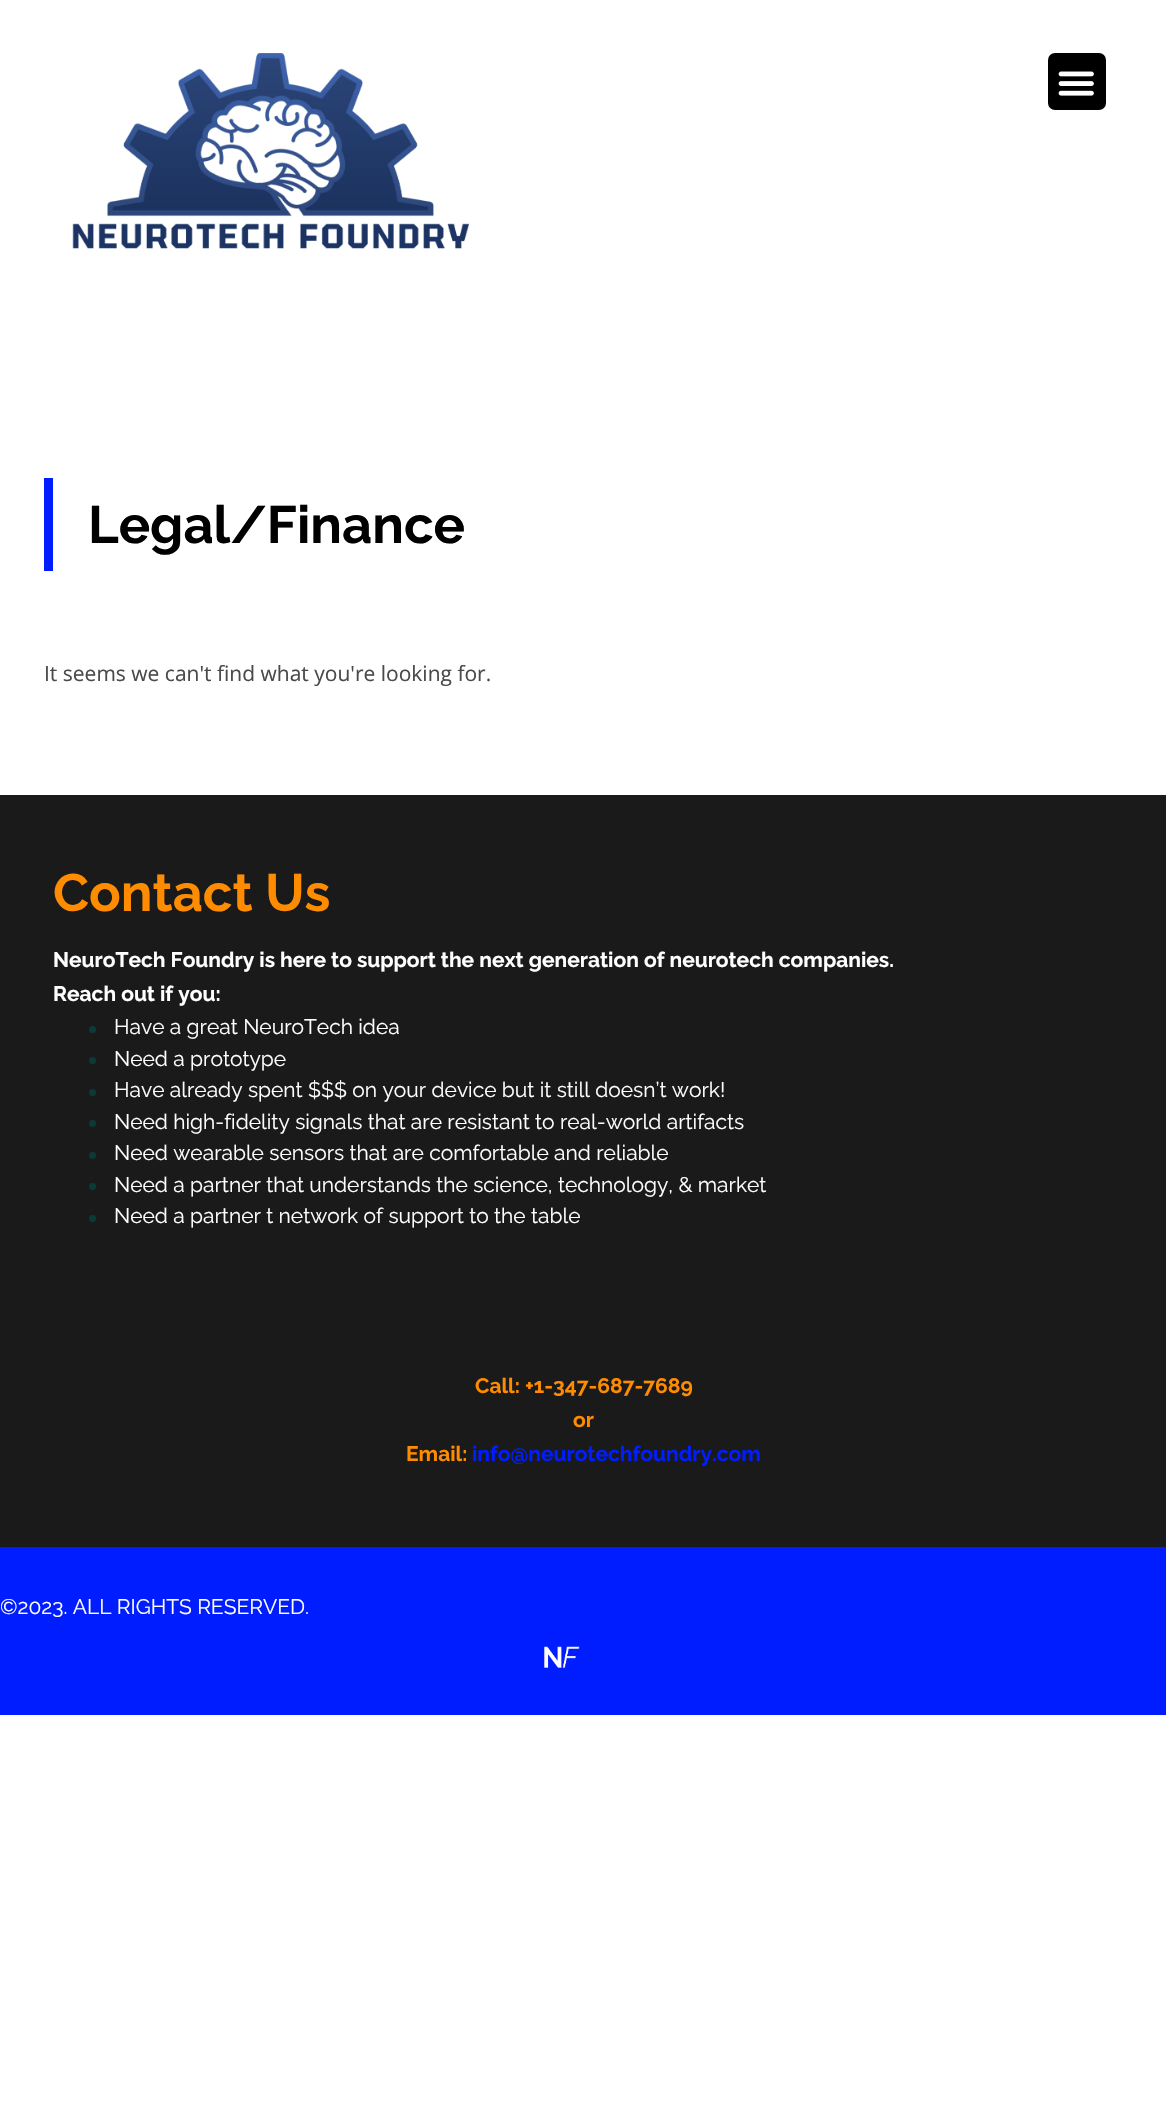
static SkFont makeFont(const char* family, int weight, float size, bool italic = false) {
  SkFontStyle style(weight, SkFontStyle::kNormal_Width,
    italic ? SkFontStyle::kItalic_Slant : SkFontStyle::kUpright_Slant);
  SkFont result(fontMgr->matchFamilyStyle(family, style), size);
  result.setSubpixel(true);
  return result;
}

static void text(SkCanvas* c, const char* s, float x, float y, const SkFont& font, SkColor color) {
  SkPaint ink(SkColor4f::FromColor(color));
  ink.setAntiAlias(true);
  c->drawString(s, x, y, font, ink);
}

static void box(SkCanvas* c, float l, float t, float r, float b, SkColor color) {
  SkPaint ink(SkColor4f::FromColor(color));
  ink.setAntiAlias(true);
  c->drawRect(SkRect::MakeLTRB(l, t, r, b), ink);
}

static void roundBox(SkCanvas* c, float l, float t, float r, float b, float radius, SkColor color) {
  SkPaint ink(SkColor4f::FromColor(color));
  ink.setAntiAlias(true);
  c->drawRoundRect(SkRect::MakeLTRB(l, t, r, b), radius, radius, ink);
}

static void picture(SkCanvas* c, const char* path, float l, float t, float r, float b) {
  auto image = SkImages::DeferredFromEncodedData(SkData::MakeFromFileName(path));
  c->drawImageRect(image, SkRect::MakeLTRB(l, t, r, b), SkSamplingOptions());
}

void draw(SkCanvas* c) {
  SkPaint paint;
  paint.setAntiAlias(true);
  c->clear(0xffffffff);
  picture(c, "img_01.png", 72, 53, 470, 249);
  roundBox(c, 1048, 53, 1106, 110, 7, 0xff000000);
  picture(c, "img_02.png", 1058, 71, 1094, 96);
  box(c, 44, 478, 53, 571, 0xff001dff);
  SkFont face1 = makeFont("Raleway", 700, 52.5f);
  text(c, "Legal/Finance", 88, 543, face1, 0xff000000);
  SkFont face2 = makeFont("Open Sans", 400, 21);
  text(c, "It seems we can't find what you're looking for.", 44, 681, face2, 0xff4a4a4a);
  box(c, 0, 795, 1166, 1547, 0xff1a1a1a);
  text(c, "Contact Us", 53, 911, face1, 0xffff8c00);
  SkFont face3 = makeFont("Raleway", 700, 21);
  text(c, "NeuroTech Foundry is here to support the next generation of neurotech companies.", 53, 967, face3, 0xffffffff);
  text(c, "Reach out if you:", 53, 1001, face3, 0xffffffff);
  paint.setColor(0xff0c3a3a);
  c->drawCircle(92.5f, 1029.5f, 3.5f, paint);
  SkFont face4 = makeFont("Raleway", 400, 21);
  text(c, "Have a great NeuroTech idea", 114, 1034, face4, 0xffffffff);
  c->drawCircle(92.5f, 1060.5f, 3.5f, paint);
  text(c, "Need a prototype", 114, 1066, face4, 0xffffffff);
  c->drawCircle(92.5f, 1092.5f, 3.5f, paint);
  text(c, "Have already spent $$$ on your device but it still doesn’t work!", 114, 1097, face4, 0xffffffff);
  c->drawCircle(92.5f, 1123.5f, 3.5f, paint);
  text(c, "Need high-fidelity signals that are resistant to real-world artifacts", 114, 1129, face4, 0xffffffff);
  c->drawCircle(92.5f, 1155.5f, 3.5f, paint);
  text(c, "Need wearable sensors that are comfortable and reliable", 114, 1160, face4, 0xffffffff);
  c->drawCircle(92.5f, 1186.5f, 3.5f, paint);
  text(c, "Need a partner that understands the science, technology, & market", 114, 1192, face4, 0xffffffff);
  c->drawCircle(92.5f, 1218.5f, 3.5f, paint);
  text(c, "Need a partner t network of support to the table", 114, 1223, face4, 0xffffffff);
  text(c, "Call: +1-347-687-7689", 475, 1393, face3, 0xffff8c00);
  text(c, "or", 573, 1427, face3, 0xffff8c00);
  text(c, "Email:", 406, 1461, face3, 0xffff8c00);
  text(c, "info@neurotechfoundry.com", 472, 1461, face3, 0xff001dff);
  box(c, 0, 1547, 1166, 1715, 0xff001dff);
  text(c, "©2023. ALL RIGHTS RESERVED.", 0, 1614, face4, 0xffffffff);
  picture(c, "img_03.png", 544, 1646, 580, 1668);
}
